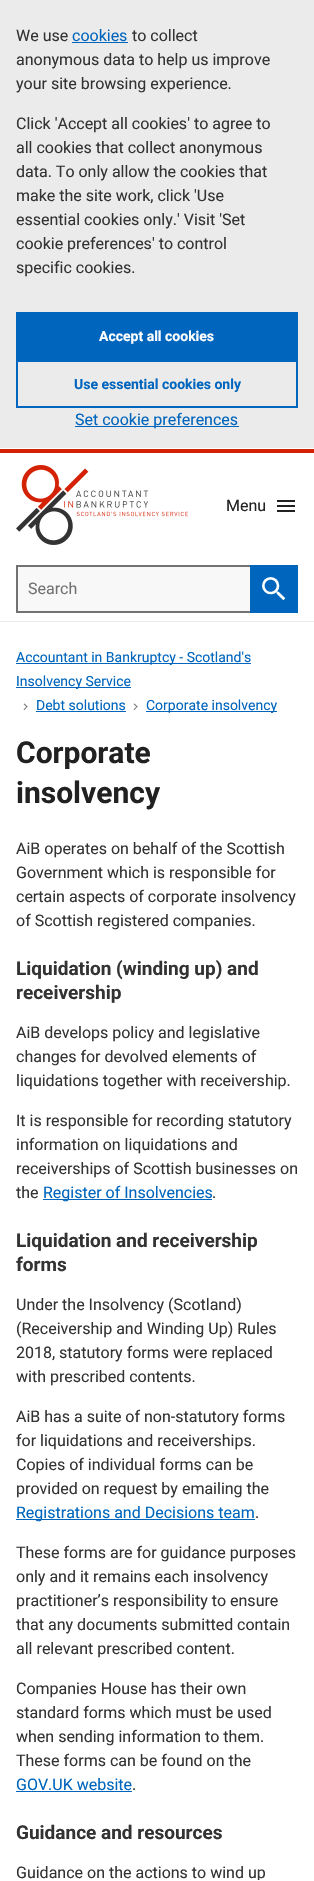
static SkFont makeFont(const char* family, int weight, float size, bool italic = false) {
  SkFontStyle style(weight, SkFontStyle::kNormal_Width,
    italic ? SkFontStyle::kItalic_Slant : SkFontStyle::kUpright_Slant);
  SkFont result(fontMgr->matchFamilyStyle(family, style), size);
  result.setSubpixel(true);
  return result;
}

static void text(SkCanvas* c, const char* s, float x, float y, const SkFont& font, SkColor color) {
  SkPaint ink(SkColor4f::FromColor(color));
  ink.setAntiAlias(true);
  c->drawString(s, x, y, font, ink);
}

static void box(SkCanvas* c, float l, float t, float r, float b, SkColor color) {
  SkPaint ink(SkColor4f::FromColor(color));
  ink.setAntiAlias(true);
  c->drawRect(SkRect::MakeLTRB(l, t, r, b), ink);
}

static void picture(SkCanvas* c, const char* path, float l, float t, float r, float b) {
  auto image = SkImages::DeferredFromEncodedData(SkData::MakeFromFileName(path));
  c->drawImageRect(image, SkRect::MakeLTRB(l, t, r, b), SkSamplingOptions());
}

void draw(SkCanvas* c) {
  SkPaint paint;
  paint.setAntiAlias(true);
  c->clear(0xffffffff);
  box(c, 0, 0, 314, 448, 0xffebebeb);
  SkFont face1 = makeFont("Roboto", 400, 16);
  text(c, "We use", 16, 41, face1, 0xff333333);
  text(c, "cookies", 72, 41, face1, 0xff0065bd);
  box(c, 72, 42, 128, 43, 0xff0065bd);
  text(c, "to collect", 132, 41, face1, 0xff333333);
  text(c, "anonymous data to help us improve", 16, 65, face1, 0xff333333);
  text(c, "your site browsing experience.", 16, 89, face1, 0xff333333);
  text(c, "Click 'Accept all cookies' to agree to", 16, 129, face1, 0xff333333);
  text(c, "all cookies that collect anonymous", 16, 153, face1, 0xff333333);
  text(c, "data. To only allow the cookies that", 16, 177, face1, 0xff333333);
  text(c, "make the site work, click 'Use", 16, 201, face1, 0xff333333);
  text(c, "essential cookies only.' Visit 'Set", 16, 225, face1, 0xff333333);
  text(c, "cookie preferences' to control", 16, 249, face1, 0xff333333);
  text(c, "specific cookies.", 16, 273, face1, 0xff333333);
  box(c, 16, 312, 298, 360, 0xff0065bd);
  SkFont face2 = makeFont("Roboto", 700, 14);
  text(c, "Accept all cookies", 99, 341, face2, 0xffffffff);
  paint.setStyle(SkPaint::kStroke_Style);
  paint.setStrokeWidth(2);
  paint.setColor(0xff0065bd);
  c->drawRect(SkRect::MakeLTRB(17, 361, 297, 407), paint);
  text(c, "Use essential cookies only", 74, 389, face2, 0xff0065bd);
  box(c, 75, 426, 239, 427, 0xff0065bd);
  text(c, "Set cookie preferences", 75, 425, face1, 0xff0065bd);
  box(c, 0, 621, 314, 622, 0xffebebeb);
  box(c, 0, 449, 314, 453, 0xffd32205);
  picture(c, "img_01.png", 16, 465, 188, 545);
  text(c, "Menu", 226, 511, face1, 0xff212121);
  picture(c, "img_02.png", 277, 500, 295, 512);
  box(c, 18, 567, 250, 611, 0xfff8f8f8);
  paint.setColor(0xff727272);
  c->drawRect(SkRect::MakeLTRB(17, 566, 297, 612), paint);
  text(c, "Search", 28, 594, face1, 0xff727272);
  box(c, 250, 565, 298, 613, 0xff0065bd);
  picture(c, "img_03.png", 262, 577, 286, 601);
  box(c, 16, 663, 251, 664, 0xff0065bd);
  SkFont face3 = makeFont("Roboto", 400, 14);
  text(c, "Accountant in Bankruptcy - Scotland's", 16, 662, face3, 0xff0065bd);
  box(c, 16, 687, 131, 688, 0xff0065bd);
  text(c, "Insolvency Service", 16, 686, face3, 0xff0065bd);
  paint.setStyle(SkPaint::kFill_Style);
  c->drawPath(SkPathBuilder().moveTo(27, 707.5f).lineTo(23.5f, 704).lineTo(24.5f, 703.5f).lineTo(27.5f, 706.5f).close().detach(), paint);
  c->drawPath(SkPathBuilder().moveTo(24.5f, 710).lineTo(23.5f, 709.5f).lineTo(27, 706).lineTo(27.5f, 706.5f).close().detach(), paint);
  text(c, "Debt solutions", 36, 710, face3, 0xff0065bd);
  box(c, 36, 711, 126, 712, 0xff0065bd);
  c->drawPath(SkPathBuilder().moveTo(137, 707.5f).lineTo(133.5f, 704).lineTo(134.5f, 703.5f).lineTo(137.5f, 706.5f).close().detach(), paint);
  c->drawPath(SkPathBuilder().moveTo(134.5f, 710).lineTo(133.5f, 709.5f).lineTo(137, 706).lineTo(137.5f, 706.5f).close().detach(), paint);
  box(c, 146, 711, 277, 712, 0xff0065bd);
  text(c, "Corporate insolvency", 146, 710, face3, 0xff0065bd);
  SkFont face4 = makeFont("Roboto", 700, 30);
  text(c, "Corporate", 16, 763, face4, 0xff212121);
  text(c, "insolvency", 16, 803, face4, 0xff212121);
  text(c, "AiB operates on behalf of the Scottish", 16, 854, face1, 0xff333333);
  text(c, "Government which is responsible for", 16, 878, face1, 0xff333333);
  text(c, "certain aspects of corporate insolvency", 16, 902, face1, 0xff333333);
  text(c, "of Scottish registered companies.", 16, 926, face1, 0xff333333);
  SkFont face5 = makeFont("Roboto", 700, 19);
  text(c, "Liquidation (winding up) and", 16, 975, face5, 0xff333333);
  text(c, "receivership", 16, 999, face5, 0xff333333);
  text(c, "AiB develops policy and legislative", 16, 1038, face1, 0xff333333);
  text(c, "changes for devolved elements of", 16, 1062, face1, 0xff333333);
  text(c, "liquidations together with receivership.", 16, 1086, face1, 0xff333333);
  text(c, "It is responsible for recording statutory", 16, 1126, face1, 0xff333333);
  text(c, "information on liquidations and", 16, 1150, face1, 0xff333333);
  text(c, "receiverships of Scottish businesses on", 16, 1174, face1, 0xff333333);
  text(c, "the", 16, 1198, face1, 0xff333333);
  box(c, 43, 1199, 212, 1200, 0xff0065bd);
  text(c, "Register of Insolvencies", 43, 1198, face1, 0xff0065bd);
  text(c, ".", 212, 1198, face1, 0xff333333);
  text(c, "Liquidation and receivership", 16, 1247, face5, 0xff333333);
  text(c, "forms", 16, 1271, face5, 0xff333333);
  text(c, "Under the Insolvency (Scotland)", 16, 1310, face1, 0xff333333);
  text(c, "(Receivership and Winding Up) Rules", 16, 1334, face1, 0xff333333);
  text(c, "2018, statutory forms were replaced", 16, 1358, face1, 0xff333333);
  text(c, "with prescribed contents.", 16, 1382, face1, 0xff333333);
  text(c, "AiB has a suite of non-statutory forms", 16, 1422, face1, 0xff333333);
  text(c, "for liquidations and receiverships.", 16, 1446, face1, 0xff333333);
  text(c, "Copies of individual forms can be", 16, 1470, face1, 0xff333333);
  text(c, "provided on request by emailing the", 16, 1494, face1, 0xff333333);
  box(c, 16, 1519, 255, 1520, 0xff0065bd);
  text(c, "Registrations and Decisions team", 16, 1518, face1, 0xff0065bd);
  text(c, ".", 255, 1518, face1, 0xff333333);
  text(c, "These forms are for guidance purposes", 16, 1558, face1, 0xff333333);
  text(c, "only and it remains each insolvency", 16, 1582, face1, 0xff333333);
  text(c, "practitioner’s responsibility to ensure", 16, 1606, face1, 0xff333333);
  text(c, "that any documents submitted contain", 16, 1630, face1, 0xff333333);
  text(c, "all relevant prescribed content.", 16, 1654, face1, 0xff333333);
  text(c, "Companies House has their own", 16, 1694, face1, 0xff333333);
  text(c, "standard forms which must be used", 16, 1718, face1, 0xff333333);
  text(c, "when sending information to them.", 16, 1742, face1, 0xff333333);
  text(c, "These forms can be found on the", 16, 1766, face1, 0xff333333);
  text(c, "GOV.UK website", 16, 1790, face1, 0xff0065bd);
  box(c, 16, 1791, 132, 1792, 0xff0065bd);
  text(c, ".", 132, 1790, face1, 0xff333333);
  text(c, "Guidance and resources", 16, 1839, face5, 0xff333333);
  text(c, "Guidance on the actions to wind up", 16, 1878, face1, 0xff333333);
  box(c, 257, 1880, 260, 1881, 0xffffffff);
}
